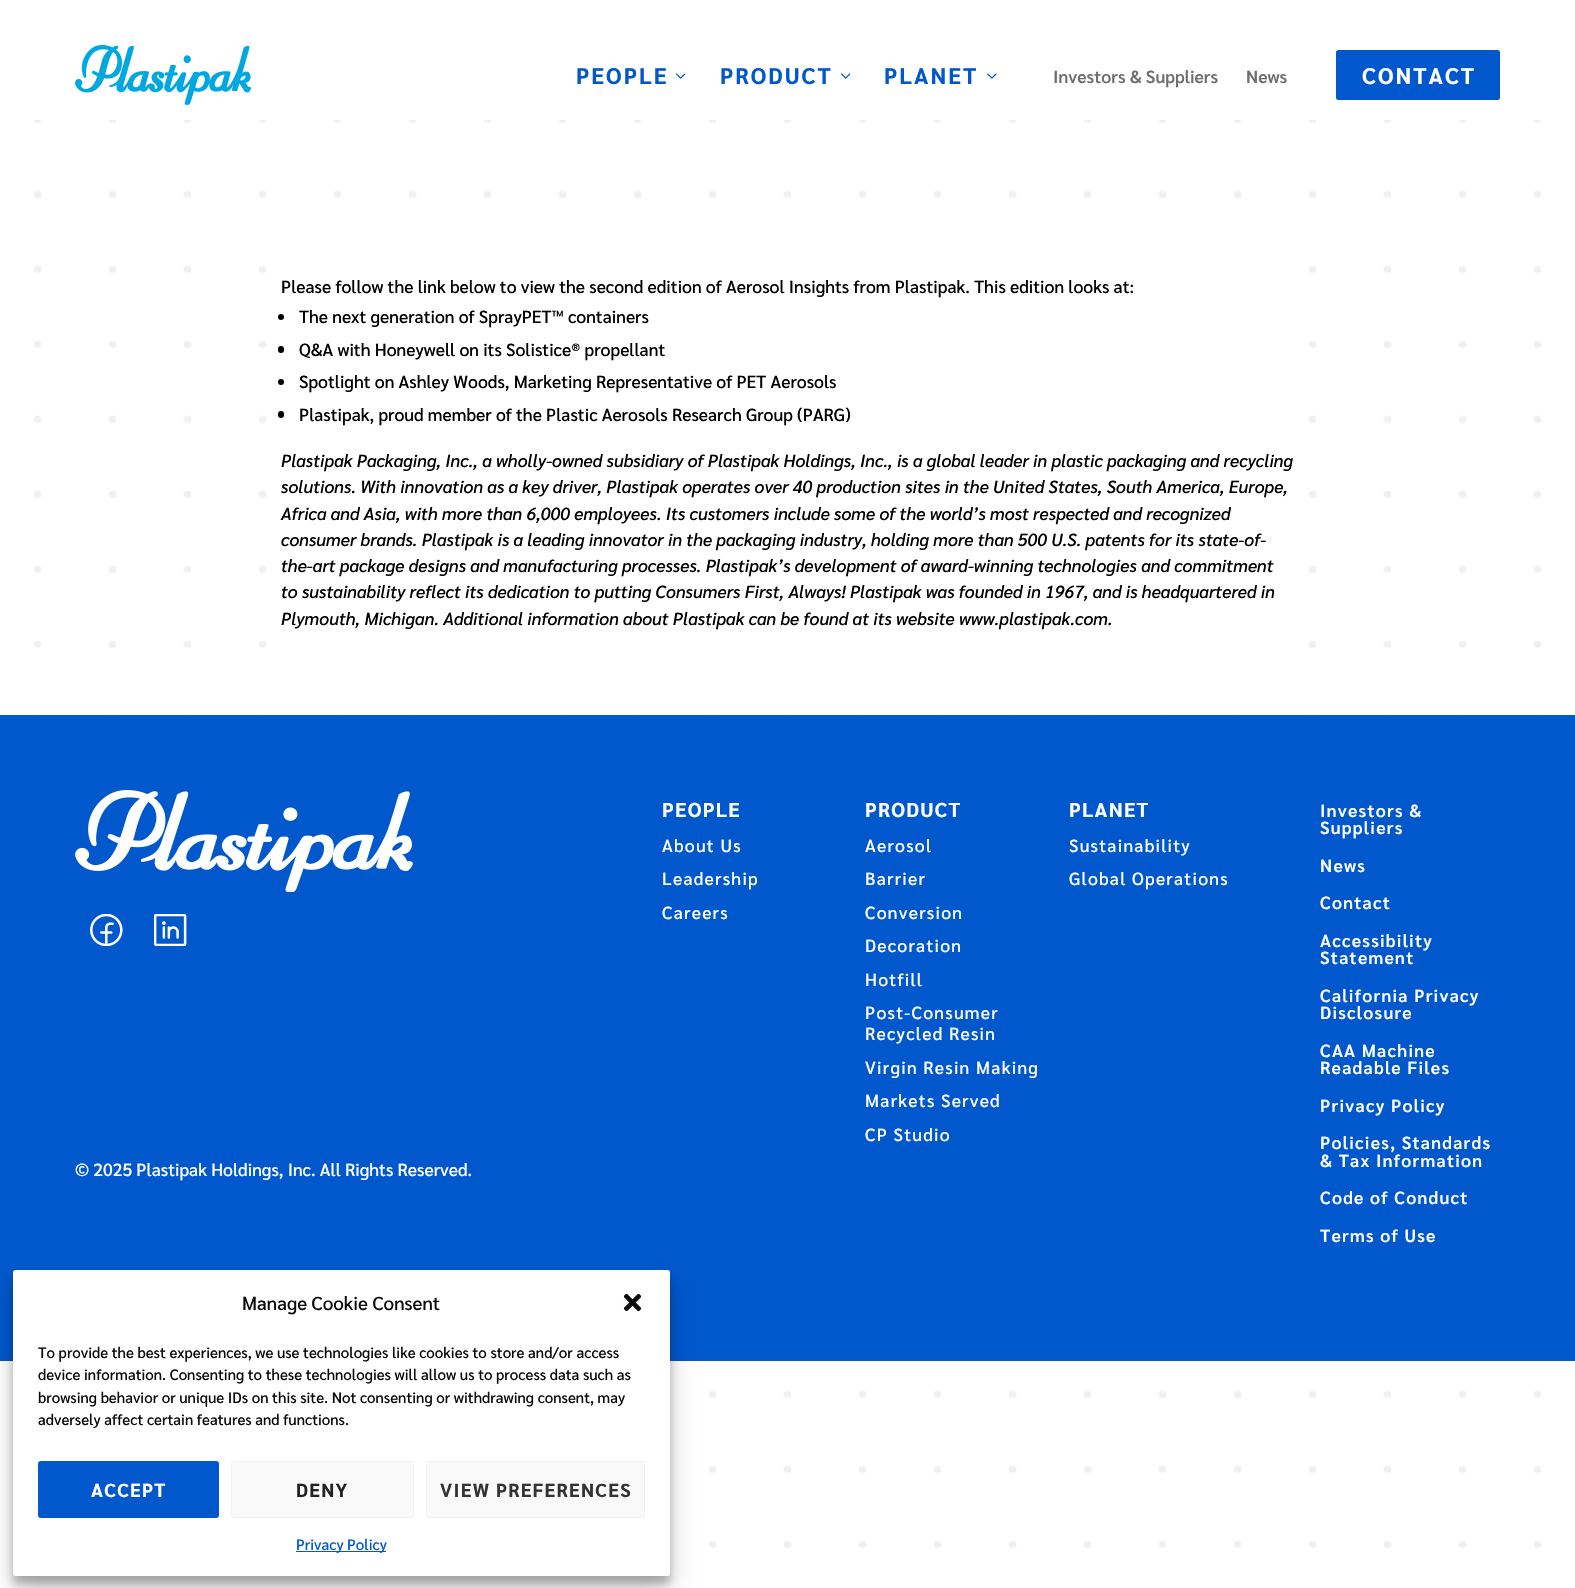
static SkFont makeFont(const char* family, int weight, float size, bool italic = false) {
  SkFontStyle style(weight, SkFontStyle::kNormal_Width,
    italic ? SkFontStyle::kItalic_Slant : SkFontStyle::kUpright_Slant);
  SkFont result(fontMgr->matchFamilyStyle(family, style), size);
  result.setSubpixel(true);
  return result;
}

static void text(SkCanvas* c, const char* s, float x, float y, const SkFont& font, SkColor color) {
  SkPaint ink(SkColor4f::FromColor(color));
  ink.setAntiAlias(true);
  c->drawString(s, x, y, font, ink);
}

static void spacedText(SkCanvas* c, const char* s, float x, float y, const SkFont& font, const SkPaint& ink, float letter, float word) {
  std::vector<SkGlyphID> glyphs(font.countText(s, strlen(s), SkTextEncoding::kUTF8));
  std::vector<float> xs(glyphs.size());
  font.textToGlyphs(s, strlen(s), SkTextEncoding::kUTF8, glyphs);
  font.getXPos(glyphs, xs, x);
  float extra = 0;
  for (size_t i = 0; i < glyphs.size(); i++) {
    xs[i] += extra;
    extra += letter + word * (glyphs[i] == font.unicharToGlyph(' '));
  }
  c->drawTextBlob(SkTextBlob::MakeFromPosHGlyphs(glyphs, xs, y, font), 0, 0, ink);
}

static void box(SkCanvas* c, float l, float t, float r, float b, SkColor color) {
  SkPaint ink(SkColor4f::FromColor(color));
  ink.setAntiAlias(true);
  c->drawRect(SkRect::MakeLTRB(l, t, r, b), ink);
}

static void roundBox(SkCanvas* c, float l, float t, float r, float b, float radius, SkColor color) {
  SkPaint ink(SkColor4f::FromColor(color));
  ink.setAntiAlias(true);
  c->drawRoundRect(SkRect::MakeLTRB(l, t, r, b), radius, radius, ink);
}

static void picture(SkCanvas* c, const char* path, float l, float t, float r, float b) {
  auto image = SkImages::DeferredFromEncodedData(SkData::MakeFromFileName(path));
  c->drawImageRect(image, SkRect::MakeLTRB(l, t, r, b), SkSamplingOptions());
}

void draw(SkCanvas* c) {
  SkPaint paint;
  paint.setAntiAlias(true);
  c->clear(0xffffffff);
  picture(c, "img_01.png", 75, 45, 251, 105);
  SkFont face1 = makeFont("Sarabun", 700, 22.5f);
  paint.setColor(0xff0058cc);
  spacedText(c, "PEOPLE", 576, 84, face1, paint, 2, 0);
  picture(c, "img_02.png", 676, 73, 686, 79);
  spacedText(c, "PRODUCT", 720, 84, face1, paint, 2, 0);
  picture(c, "img_02.png", 841, 73, 851, 79);
  spacedText(c, "PLANET", 884, 84, face1, paint, 2, 0);
  picture(c, "img_03.png", 987, 73, 997, 79);
  SkFont face2 = makeFont("Sarabun", 600, 17.5f);
  text(c, "Investors & Suppliers", 1053, 83, face2, 0xff6d6e71);
  text(c, "News", 1246, 83, face2, 0xff6d6e71);
  roundBox(c, 1336, 50, 1500, 100, 2.5f, 0xff0058cc);
  paint.setColor(0xffffffff);
  spacedText(c, "CONTACT", 1362, 84, face1, paint, 2, 0);
  picture(c, "img_04.png", 33, 120, 1542, 1549);
  box(c, 333, 265, 1242, 649, 0xffffffff);
  SkFont face3 = makeFont("Sarabun", 500, 17.5f);
  text(c, "Please follow the link below to view the second edition of Aerosol Insights from Plastipak. This edition looks at:", 281, 293, face3, 0xff000000);
  paint.setColor(0xff000000);
  c->drawCircle(281, 317, 3, paint);
  text(c, "The next generation of SprayPET™ containers", 299, 323, face3, 0xff000000);
  roundBox(c, 278, 346, 284, 353, 3, 0xff000000);
  text(c, "Q&A with Honeywell on its Solistice® propellant", 299, 356, face3, 0xff000000);
  c->drawCircle(281, 382, 3, paint);
  text(c, "Spotlight on Ashley Woods, Marketing Representative of PET Aerosols", 299, 388, face3, 0xff000000);
  roundBox(c, 278, 411, 284, 418, 3, 0xff000000);
  text(c, "Plastipak, proud member of the Plastic Aerosols Research Group (PARG)", 299, 421, face3, 0xff000000);
  SkFont face4 = makeFont("Sarabun", 500, 17.5f, true);
  text(c, "Plastipak Packaging, Inc., a wholly-owned subsidiary of Plastipak Holdings, Inc., is a global leader in plastic packaging and recycling", 281, 467, face4, 0xff000000);
  text(c, "solutions. With innovation as a key driver, Plastipak operates over 40 production sites in the United States, South America, Europe,", 281, 493, face4, 0xff000000);
  text(c, "Africa and Asia, with more than 6,000 employees. Its customers include some of the world’s most respected and recognized", 281, 520, face4, 0xff000000);
  text(c, "consumer brands. Plastipak is a leading innovator in the packaging industry, holding more than 500 U.S. patents for its state-of-", 281, 546, face4, 0xff000000);
  text(c, "the-art package designs and manufacturing processes. Plastipak’s development of award-winning technologies and commitment", 281, 572, face4, 0xff000000);
  text(c, "to sustainability reflect its dedication to putting Consumers First, Always! Plastipak was founded in 1967, and is headquartered in", 281, 598, face4, 0xff000000);
  text(c, "Plymouth, Michigan. Additional information about Plastipak can be found at its website www.plastipak.com.", 281, 625, face4, 0xff000000);
  box(c, 0, 715, 1575, 1361, 0xff0058cc);
  picture(c, "img_05.png", 75, 790, 413, 892);
  picture(c, "img_06.png", 90, 914, 123, 946);
  picture(c, "img_07.png", 154, 914, 187, 946);
  text(c, "© 2025 Plastipak Holdings, Inc. All Rights Reserved.", 75, 1176, face3, 0xffffffff);
  SkFont face5 = makeFont("Sarabun", 700, 20);
  paint.setColor(0xffffffff);
  spacedText(c, "PEOPLE", 662, 817, face5, paint, 1.25f, 0);
  spacedText(c, "About Us", 662, 852, face3, paint, 1.25f, 0);
  spacedText(c, "Leadership", 662, 885, face3, paint, 1.25f, 0);
  spacedText(c, "Careers", 662, 919, face3, paint, 1.25f, 0);
  spacedText(c, "PRODUCT", 865, 817, face5, paint, 1.25f, 0);
  spacedText(c, "Aerosol", 865, 852, face3, paint, 1.25f, 0);
  spacedText(c, "Barrier", 865, 885, face3, paint, 1.25f, 0);
  spacedText(c, "Conversion", 865, 919, face3, paint, 1.25f, 0);
  spacedText(c, "Decoration", 865, 952, face3, paint, 1.25f, 0);
  spacedText(c, "Hotfill", 865, 986, face3, paint, 1.25f, 0);
  spacedText(c, "Post-Consumer", 865, 1019, face3, paint, 1.25f, 0);
  spacedText(c, "Recycled Resin", 865, 1040, face3, paint, 1.25f, 0);
  spacedText(c, "Virgin Resin Making", 865, 1074, face3, paint, 1.25f, 0);
  spacedText(c, "Markets Served", 865, 1107, face3, paint, 1.25f, 0);
  spacedText(c, "CP Studio", 865, 1141, face3, paint, 1.25f, 0);
  spacedText(c, "PLANET", 1069, 817, face5, paint, 1.25f, 0);
  spacedText(c, "Sustainability", 1069, 852, face3, paint, 1.25f, 0);
  spacedText(c, "Global Operations", 1069, 885, face3, paint, 1.25f, 0);
  spacedText(c, "Investors &", 1320, 817, face2, paint, 1.25f, 0);
  spacedText(c, "Suppliers", 1320, 834, face2, paint, 1.25f, 0);
  spacedText(c, "News", 1320, 872, face2, paint, 1.25f, 0);
  spacedText(c, "Contact", 1320, 909, face2, paint, 1.25f, 0);
  spacedText(c, "Accessibility", 1320, 947, face2, paint, 1.25f, 0);
  spacedText(c, "Statement", 1320, 964, face2, paint, 1.25f, 0);
  spacedText(c, "California Privacy", 1320, 1002, face2, paint, 1.25f, 0);
  spacedText(c, "Disclosure", 1320, 1019, face2, paint, 1.25f, 0);
  spacedText(c, "CAA Machine", 1320, 1057, face2, paint, 1.25f, 0);
  spacedText(c, "Readable Files", 1320, 1074, face2, paint, 1.25f, 0);
  spacedText(c, "Privacy Policy", 1320, 1112, face2, paint, 1.25f, 0);
  spacedText(c, "Policies, Standards", 1320, 1149, face2, paint, 1.25f, 0);
  spacedText(c, "& Tax Information", 1320, 1167, face2, paint, 1.25f, 0);
  spacedText(c, "Code of Conduct", 1320, 1204, face2, paint, 1.25f, 0);
  spacedText(c, "Terms of Use", 1320, 1242, face2, paint, 1.25f, 0);
  paint.setColor(0x3b000000);
  paint.setMaskFilter(SkMaskFilter::MakeBlur(kNormal_SkBlurStyle, 4));
  c->drawRoundRect(SkRect::MakeLTRB(13, 1278, 670, 1584), 2.5f, 2.5f, paint);
  paint.setMaskFilter(nullptr);
  paint.setColor(0x30000000);
  paint.setMaskFilter(SkMaskFilter::MakeBlur(kNormal_SkBlurStyle, 12.5f));
  c->drawRoundRect(SkRect::MakeLTRB(13, 1283, 670, 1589), 2.5f, 2.5f, paint);
  paint.setMaskFilter(nullptr);
  roundBox(c, 13, 1270, 670, 1576, 2.5f, 0xffffffff);
  SkFont face6 = makeFont("Sarabun", 500, 18.75f);
  text(c, "Manage Cookie Consent", 242, 1310, face6, 0xff0a0a0a);
  picture(c, "img_08.png", 623, 1293, 642, 1312);
  SkFont face7 = makeFont("Sarabun", 500, 15);
  text(c, "To provide the best experiences, we use technologies like cookies to store and/or access", 38, 1358, face7, 0xff0a0a0a);
  text(c, "device information. Consenting to these technologies will allow us to process data such as", 38, 1380, face7, 0xff0a0a0a);
  text(c, "browsing behavior or unique IDs on this site. Not consenting or withdrawing consent, may", 38, 1403, face7, 0xff0a0a0a);
  text(c, "adversely affect certain features and functions.", 38, 1425, face7, 0xff0a0a0a);
  paint.setColor(0xff0058cc);
  c->drawRoundRect(SkRect::MakeLTRB(38.5f, 1461.5f, 218.5f, 1517.5f), 2, 2, paint);
  paint.setStyle(SkPaint::kStroke_Style);
  paint.setStrokeWidth(1);
  c->drawRoundRect(SkRect::MakeLTRB(38.5f, 1461.5f, 218.5f, 1517.5f), 2, 2, paint);
  SkFont face8 = makeFont("Sarabun", 700, 18.75f);
  paint.setStyle(SkPaint::kFill_Style);
  paint.setColor(0xffffffff);
  spacedText(c, "ACCEPT", 91, 1497, face8, paint, 1.25f, 0);
  paint.setColor(0xfff9f9f9);
  c->drawRoundRect(SkRect::MakeLTRB(231.5f, 1461.5f, 413.5f, 1517.5f), 2, 2, paint);
  paint.setStyle(SkPaint::kStroke_Style);
  paint.setColor(0xfff2f2f2);
  c->drawRoundRect(SkRect::MakeLTRB(231.5f, 1461.5f, 413.5f, 1517.5f), 2, 2, paint);
  paint.setStyle(SkPaint::kFill_Style);
  paint.setColor(0xff222222);
  spacedText(c, "DENY", 296, 1497, face8, paint, 1.25f, 0);
  paint.setColor(0xfff9f9f9);
  c->drawRoundRect(SkRect::MakeLTRB(426.5f, 1461.5f, 644.5f, 1517.5f), 2, 2, paint);
  paint.setStyle(SkPaint::kStroke_Style);
  paint.setColor(0xfff2f2f2);
  c->drawRoundRect(SkRect::MakeLTRB(426.5f, 1461.5f, 644.5f, 1517.5f), 2, 2, paint);
  paint.setStyle(SkPaint::kFill_Style);
  paint.setColor(0xff333333);
  spacedText(c, "VIEW PREFERENCES", 440, 1497, face8, paint, 1.25f, 0);
  box(c, 296, 1551, 386, 1552, 0xff0058cc);
  text(c, "Privacy Policy", 296, 1550, face7, 0xff0058cc);
}
